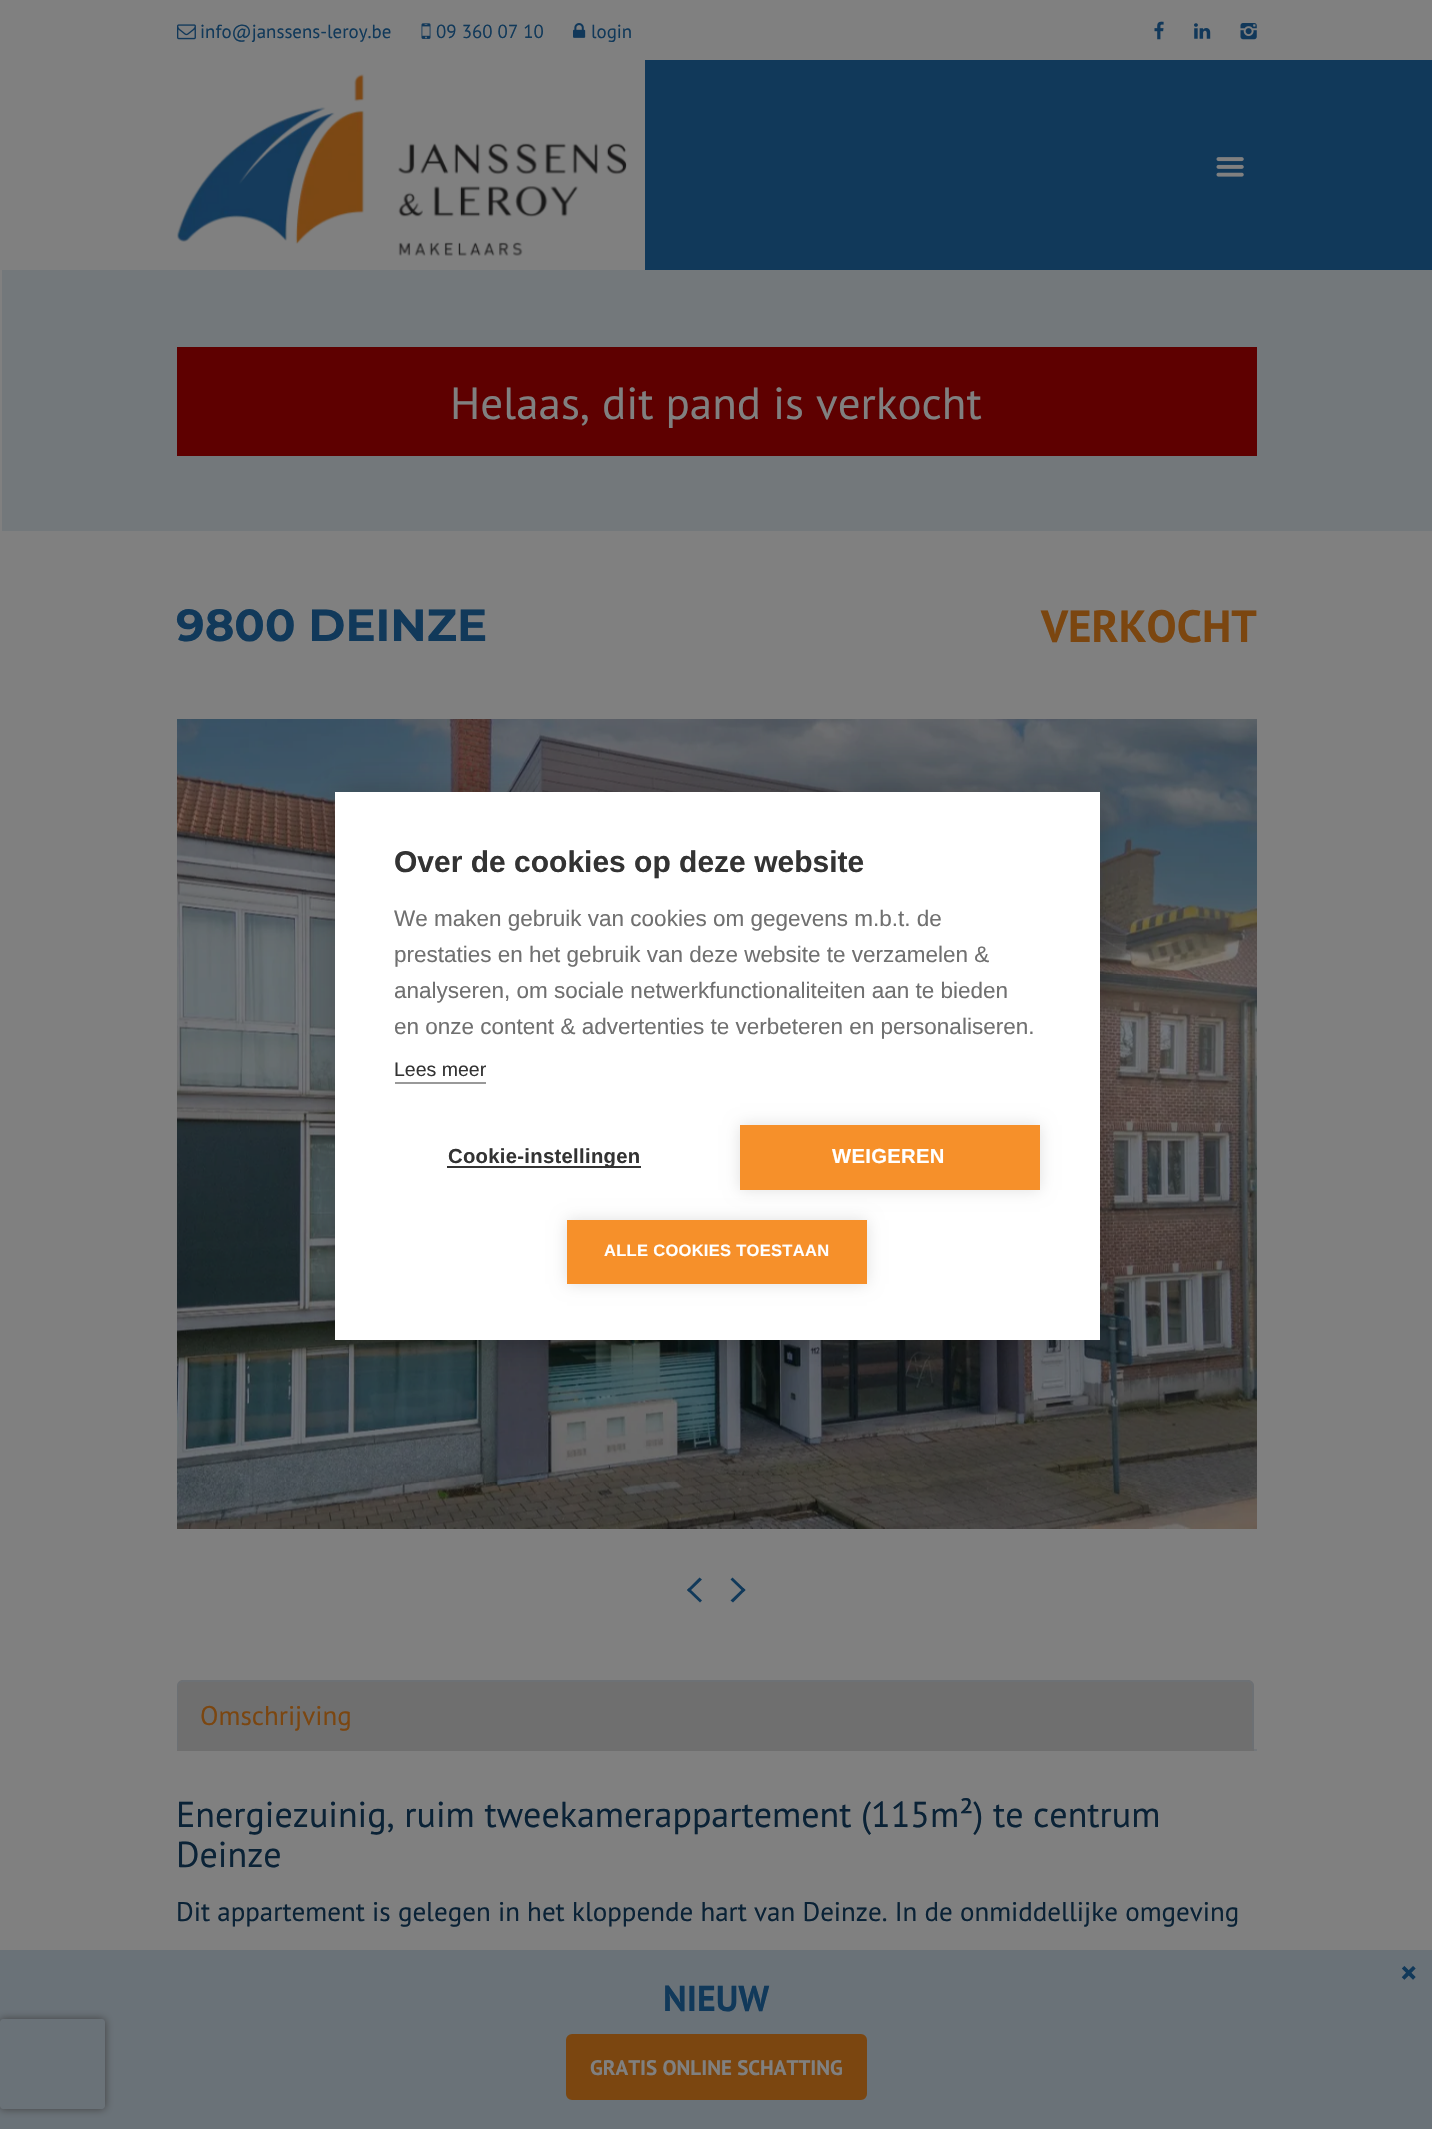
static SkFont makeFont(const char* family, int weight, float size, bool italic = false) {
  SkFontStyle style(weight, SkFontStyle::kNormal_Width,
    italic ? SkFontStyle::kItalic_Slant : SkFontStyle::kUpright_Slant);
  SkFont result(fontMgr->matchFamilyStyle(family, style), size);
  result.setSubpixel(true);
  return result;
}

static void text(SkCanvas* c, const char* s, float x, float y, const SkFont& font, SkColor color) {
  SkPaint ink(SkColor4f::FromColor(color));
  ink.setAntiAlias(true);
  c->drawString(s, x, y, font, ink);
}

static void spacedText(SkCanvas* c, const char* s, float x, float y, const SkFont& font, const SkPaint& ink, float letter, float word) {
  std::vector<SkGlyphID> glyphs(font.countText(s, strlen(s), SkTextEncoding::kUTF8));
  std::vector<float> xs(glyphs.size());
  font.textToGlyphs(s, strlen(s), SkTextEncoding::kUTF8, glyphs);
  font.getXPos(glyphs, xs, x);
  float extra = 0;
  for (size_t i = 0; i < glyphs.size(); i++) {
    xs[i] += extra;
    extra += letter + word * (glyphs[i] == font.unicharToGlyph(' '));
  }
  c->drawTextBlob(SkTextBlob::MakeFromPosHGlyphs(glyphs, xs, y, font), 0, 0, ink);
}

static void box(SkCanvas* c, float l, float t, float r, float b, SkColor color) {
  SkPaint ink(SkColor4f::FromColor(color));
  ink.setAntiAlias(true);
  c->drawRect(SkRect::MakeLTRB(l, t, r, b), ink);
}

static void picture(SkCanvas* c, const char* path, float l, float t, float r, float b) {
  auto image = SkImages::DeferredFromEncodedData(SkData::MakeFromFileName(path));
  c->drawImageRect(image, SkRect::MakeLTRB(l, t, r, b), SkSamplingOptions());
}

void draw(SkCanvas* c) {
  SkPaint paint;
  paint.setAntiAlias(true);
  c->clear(0xff808080);
  picture(c, "img_01.png", 177, 24, 196, 40);
  SkFont face1 = makeFont("PT Sans", 400, 18.9f);
  text(c, "info@janssens-leroy.be", 200, 38, face1, 0xff11395a);
  picture(c, "img_02.png", 421, 23, 431, 39);
  text(c, "09 360 07 10", 436, 38, face1, 0xff11395a);
  picture(c, "img_03.png", 573, 23, 586, 38);
  text(c, "login", 591, 38, face1, 0xff11395a);
  picture(c, "img_04.png", 1154, 21, 1164, 40);
  picture(c, "img_05.png", 1194, 23, 1211, 39);
  picture(c, "img_06.png", 1240, 23, 1257, 40);
  box(c, 645, 60, 1432, 270, 0xff11395a);
  picture(c, "img_07.png", 177, 74, 627, 256);
  picture(c, "img_08.png", 1216, 157, 1244, 177);
  box(c, 2, 270, 1432, 531, 0xff73787b);
  box(c, 177, 347, 1257, 456, 0xff5e0000);
  SkFont face2 = makeFont("PT Sans", 400, 45);
  text(c, "Helaas, dit pand is verkocht", 450, 419, face2, 0xff808080);
  SkFont face3 = makeFont("Montserrat", 700, 45);
  text(c, "9800 DEINZE", 176, 641, face3, 0xff11395a);
  SkFont face4 = makeFont("PT Sans", 700, 45);
  text(c, "VERKOCHT", 1041, 642, face4, 0xff7b4610);
  picture(c, "img_09.png", 177, 719, 1257, 1529);
  paint.setColor(0xff11395a);
  c->drawPath(SkPathBuilder().moveTo(700, 1602.5f).lineTo(687, 1590).lineTo(689, 1588).lineTo(702, 1600.5f).close().detach(), paint);
  c->drawPath(SkPathBuilder().moveTo(689, 1592).lineTo(687, 1590).lineTo(699.5f, 1577.5f).lineTo(702, 1579.5f).close().moveTo(732.5f, 1577.5f).lineTo(745.5f, 1590).lineTo(743.5f, 1592).lineTo(730.5f, 1579.5f).close().detach(), paint);
  c->drawPath(SkPathBuilder().moveTo(743.5f, 1588).lineTo(745.5f, 1590).lineTo(733, 1602.5f).lineTo(730.5f, 1600.5f).close().detach(), paint);
  box(c, 1254, 1749, 1257, 1751, 0xff73777b);
  paint.setColor(0xff6f6f6f);
  c->drawPath(SkPathBuilder().moveTo(183, 1680).lineTo(1248, 1680).cubicTo(1251.5f, 1680, 1254, 1682.5f, 1254, 1686).lineTo(1254, 1751).lineTo(177, 1751).lineTo(177, 1686).cubicTo(177, 1682.5f, 179.5f, 1680, 183, 1680).close().detach(), paint);
  paint.setColor(0x996a7278);
  c->drawPath(SkPathBuilder().moveTo(183, 1680).cubicTo(182, 1680, 180, 1681, 179, 1682).lineTo(180, 1683).lineTo(183, 1682).lineTo(1248, 1682).lineTo(1251, 1683).lineTo(1252, 1682).cubicTo(1251, 1681, 1250, 1680, 1248, 1680).close().detach(), paint);
  c->drawPath(SkPathBuilder().moveTo(1254, 1750).lineTo(1254, 1686).cubicTo(1254, 1684, 1253, 1683, 1252, 1682).lineTo(1251, 1683).lineTo(1252, 1686).lineTo(1252, 1748).close().detach(), paint);
  c->drawPath(SkPathBuilder().moveTo(177, 1686).lineTo(177, 1750).lineTo(178, 1750).lineTo(178, 1749).lineTo(178, 1686).lineTo(180, 1683).lineTo(179, 1682).cubicTo(178, 1683, 177, 1684, 177, 1686).close().detach(), paint);
  SkFont face5 = makeFont("PT Sans", 400, 27);
  text(c, "Omschrijving", 200, 1725, face5, 0xff7b4610);
  SkFont face6 = makeFont("PT Sans", 400, 36);
  text(c, "Energiezuinig, ruim tweekamerappartement (115m²) te centrum", 176, 1827, face6, 0xff0a2236);
  text(c, "Deinze", 176, 1867, face6, 0xff0a2236);
  text(c, "Dit appartement is gelegen in het kloppende hart van Deinze. In de onmiddellijke omgeving", 176, 1921, face5, 0xff0a2236);
  box(c, 0, 1950, 1432, 2129, 0xff6a7278);
  SkFont face7 = makeFont("PT Sans", 700, 33);
  text(c, "×", 1400, 1984, face7, 0xff11395a);
  SkFont face8 = makeFont("PT Sans", 700, 36);
  text(c, "NIEUW", 663, 2011, face8, 0xff11395a);
  paint.setColor(0xff7b4610);
  c->drawRoundRect(SkRect::MakeLTRB(567, 2035, 866, 2099), 5, 5, paint);
  paint.setStyle(SkPaint::kStroke_Style);
  paint.setStrokeWidth(2);
  c->drawRoundRect(SkRect::MakeLTRB(567, 2035, 866, 2099), 5, 5, paint);
  SkFont face9 = makeFont("PT Sans", 700, 21);
  text(c, "GRATIS ONLINE SCHATTING", 590, 2075, face9, 0xff808080);
  paint.setStyle(SkPaint::kFill_Style);
  paint.setColor(0x33000000);
  paint.setMaskFilter(SkMaskFilter::MakeBlur(kNormal_SkBlurStyle, 15));
  c->drawRect(SkRect::MakeLTRB(335, 792, 1100, 1340), paint);
  paint.setMaskFilter(nullptr);
  box(c, 335, 792, 1100, 1340, 0xffffffff);
  SkFont face10 = makeFont("Liberation Sans", 700, 30);
  text(c, "Over de cookies op deze website", 394, 872, face10, 0xff333333);
  SkFont face11 = makeFont("Liberation Sans", 400, 22.5f);
  text(c, "We maken gebruik van cookies om gegevens m.b.t. de", 394, 926, face11, 0xff707070);
  text(c, "prestaties en het gebruik van deze website te verzamelen &", 394, 962, face11, 0xff707070);
  text(c, "analyseren, om sociale netwerkfunctionaliteiten aan te bieden", 394, 998, face11, 0xff707070);
  text(c, "en onze content & advertenties te verbeteren en personaliseren.", 394, 1034, face11, 0xff707070);
  SkFont face12 = makeFont("Liberation Sans", 400, 19.5f);
  text(c, "Lees meer", 394, 1076, face12, 0xff333333);
  box(c, 395, 1082, 486, 1084, 0xff999999);
  box(c, 447, 1166, 641, 1168, 0xff333333);
  SkFont face13 = makeFont("Liberation Sans", 700, 20.25f);
  paint.setColor(0xff333333);
  spacedText(c, "Cookie-instellingen", 448, 1163, face13, paint, 0.3f, 0);
  paint.setColor(0x1f000000);
  paint.setMaskFilter(SkMaskFilter::MakeBlur(kNormal_SkBlurStyle, 7.5f));
  c->drawRect(SkRect::MakeLTRB(740, 1125, 1040, 1190), paint);
  paint.setMaskFilter(nullptr);
  box(c, 740, 1125, 1040, 1190, 0xfff6902a);
  paint.setColor(0xffffffff);
  spacedText(c, "WEIGEREN", 832, 1163, face13, paint, 0.3f, 0);
  paint.setColor(0x1f000000);
  paint.setMaskFilter(SkMaskFilter::MakeBlur(kNormal_SkBlurStyle, 7.5f));
  c->drawRect(SkRect::MakeLTRB(567, 1220, 867, 1284), paint);
  paint.setMaskFilter(nullptr);
  box(c, 567, 1220, 867, 1284, 0xfff6902a);
  SkFont face14 = makeFont("Liberation Sans", 700, 16.5f);
  paint.setColor(0xffffffff);
  spacedText(c, "ALLE COOKIES TOESTAAN", 604, 1256, face14, paint, 0.3f, 0);
  c->save();
  c->clipPath(SkPathBuilder(SkPathFillType::kEvenOdd).moveTo(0, 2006).lineTo(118, 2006).lineTo(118, 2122).lineTo(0, 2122).close().moveTo(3, 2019).lineTo(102, 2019).cubicTo(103.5f, 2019, 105, 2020.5f, 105, 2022).lineTo(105, 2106).cubicTo(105, 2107.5f, 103.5f, 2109, 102, 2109).lineTo(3, 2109).cubicTo(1.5f, 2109, 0, 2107.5f, 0, 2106).lineTo(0, 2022).cubicTo(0, 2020.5f, 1.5f, 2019, 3, 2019).close().detach(), true);
  paint.setColor(0xff404040);
  paint.setMaskFilter(SkMaskFilter::MakeBlur(kNormal_SkBlurStyle, 4));
  c->drawRoundRect(SkRect::MakeLTRB(0, 2019, 105, 2109), 3, 3, paint);
  paint.setMaskFilter(nullptr);
  c->restore();
}
